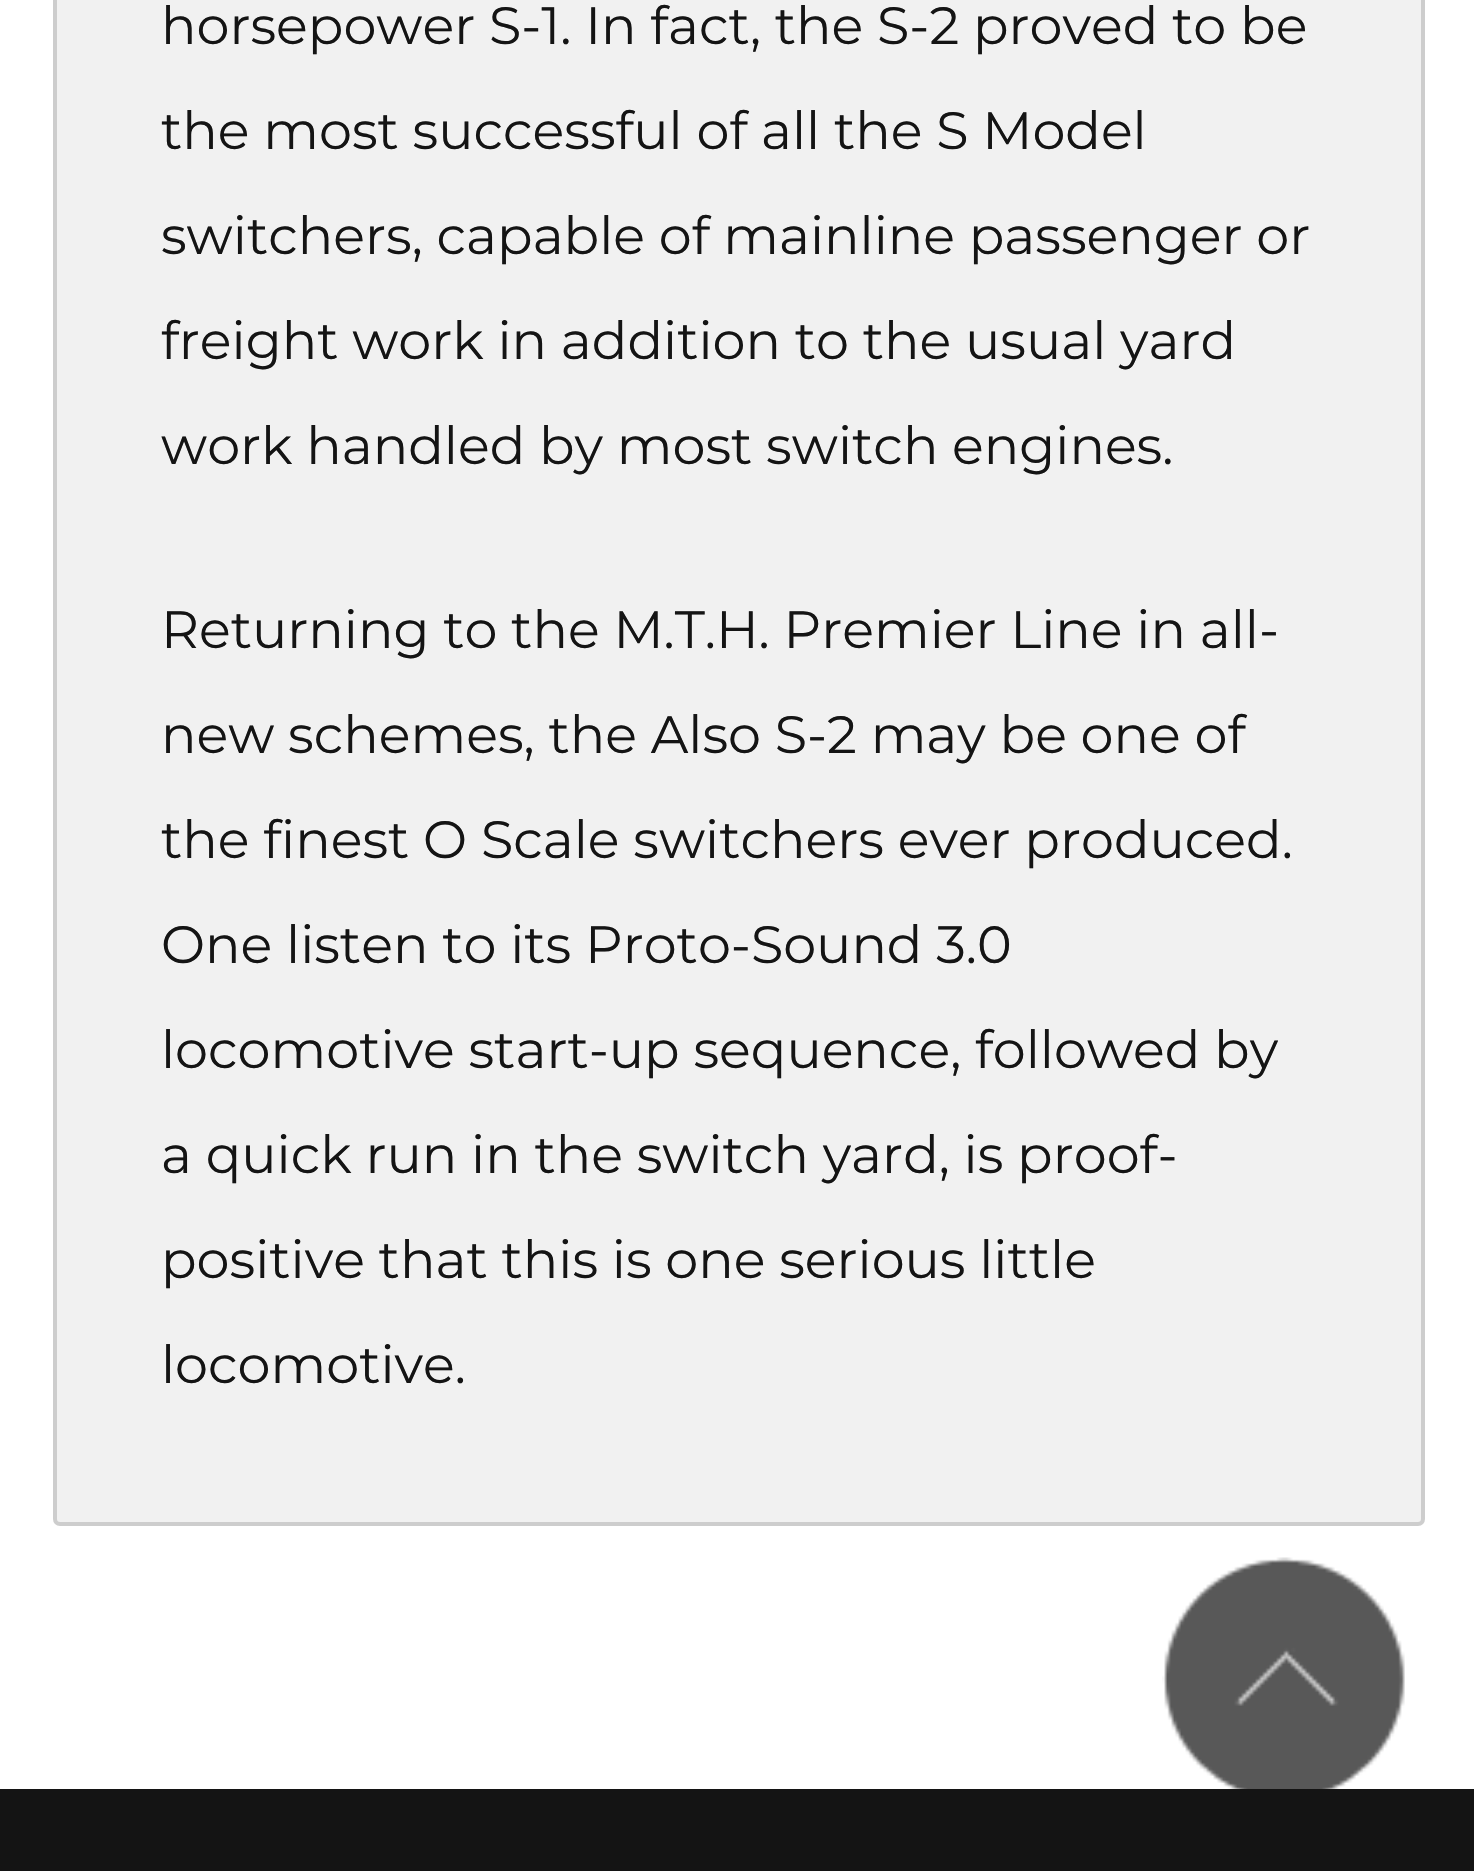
static SkFont makeFont(const char* family, int weight, float size, bool italic = false) {
  SkFontStyle style(weight, SkFontStyle::kNormal_Width,
    italic ? SkFontStyle::kItalic_Slant : SkFontStyle::kUpright_Slant);
  SkFont result(fontMgr->matchFamilyStyle(family, style), size);
  result.setSubpixel(true);
  return result;
}

static void text(SkCanvas* c, const char* s, float x, float y, const SkFont& font, SkColor color) {
  SkPaint ink(SkColor4f::FromColor(color));
  ink.setAntiAlias(true);
  c->drawString(s, x, y, font, ink);
}

static void box(SkCanvas* c, float l, float t, float r, float b, SkColor color) {
  SkPaint ink(SkColor4f::FromColor(color));
  ink.setAntiAlias(true);
  c->drawRect(SkRect::MakeLTRB(l, t, r, b), ink);
}

static void picture(SkCanvas* c, const char* path, float l, float t, float r, float b) {
  auto image = SkImages::DeferredFromEncodedData(SkData::MakeFromFileName(path));
  c->drawImageRect(image, SkRect::MakeLTRB(l, t, r, b), SkSamplingOptions());
}

void draw(SkCanvas* c) {
  SkPaint paint;
  paint.setAntiAlias(true);
  c->clear(0xffffffff);
  paint.setColor(0xfff1f1f1);
  c->drawPath(SkPathBuilder().moveTo(55, -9).lineTo(1418, -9).cubicTo(1421, -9, 1423, -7, 1423, -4).lineTo(1423, 1519).cubicTo(1423, 1522, 1421, 1524, 1418, 1524).lineTo(60, 1524).cubicTo(57, 1524, 55, 1522, 55, 1519).close().detach(), paint);
  paint.setStyle(SkPaint::kStroke_Style);
  paint.setStrokeWidth(4);
  paint.setColor(0xffcdcdcd);
  c->drawPath(SkPathBuilder().moveTo(55, -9).lineTo(1418, -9).cubicTo(1421, -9, 1423, -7, 1423, -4).lineTo(1423, 1519).cubicTo(1423, 1522, 1421, 1524, 1418, 1524).lineTo(60, 1524).cubicTo(57, 1524, 55, 1522, 55, 1519).close().detach(), paint);
  SkFont face1 = makeFont("Montserrat", 400, 52.5f);
  text(c, "horsepower S-1. In fact, the S-2 proved to be", 161, 44, face1, 0xff141414);
  text(c, "the most successful of all the S Model", 161, 149, face1, 0xff141414);
  text(c, "switchers, capable of mainline passenger or", 161, 254, face1, 0xff141414);
  text(c, "freight work in addition to the usual yard", 161, 359, face1, 0xff141414);
  text(c, "work handled by most switch engines.", 161, 464, face1, 0xff141414);
  text(c, "Returning to the M.T.H. Premier Line in all-", 161, 648, face1, 0xff141414);
  text(c, "new schemes, the Also S-2 may be one of", 161, 753, face1, 0xff141414);
  text(c, "the finest O Scale switchers ever produced.", 161, 858, face1, 0xff141414);
  text(c, "One listen to its Proto-Sound 3.0", 161, 963, face1, 0xff141414);
  text(c, "locomotive start-up sequence, followed by", 161, 1068, face1, 0xff141414);
  text(c, "a quick run in the switch yard, is proof-", 161, 1173, face1, 0xff141414);
  text(c, "positive that this is one serious little", 161, 1278, face1, 0xff141414);
  text(c, "locomotive.", 161, 1383, face1, 0xff141414);
  box(c, 0, 1789, 1474, 1871, 0xff141414);
  picture(c, "img_01.png", 1162, 1557, 1405, 1789);
}
